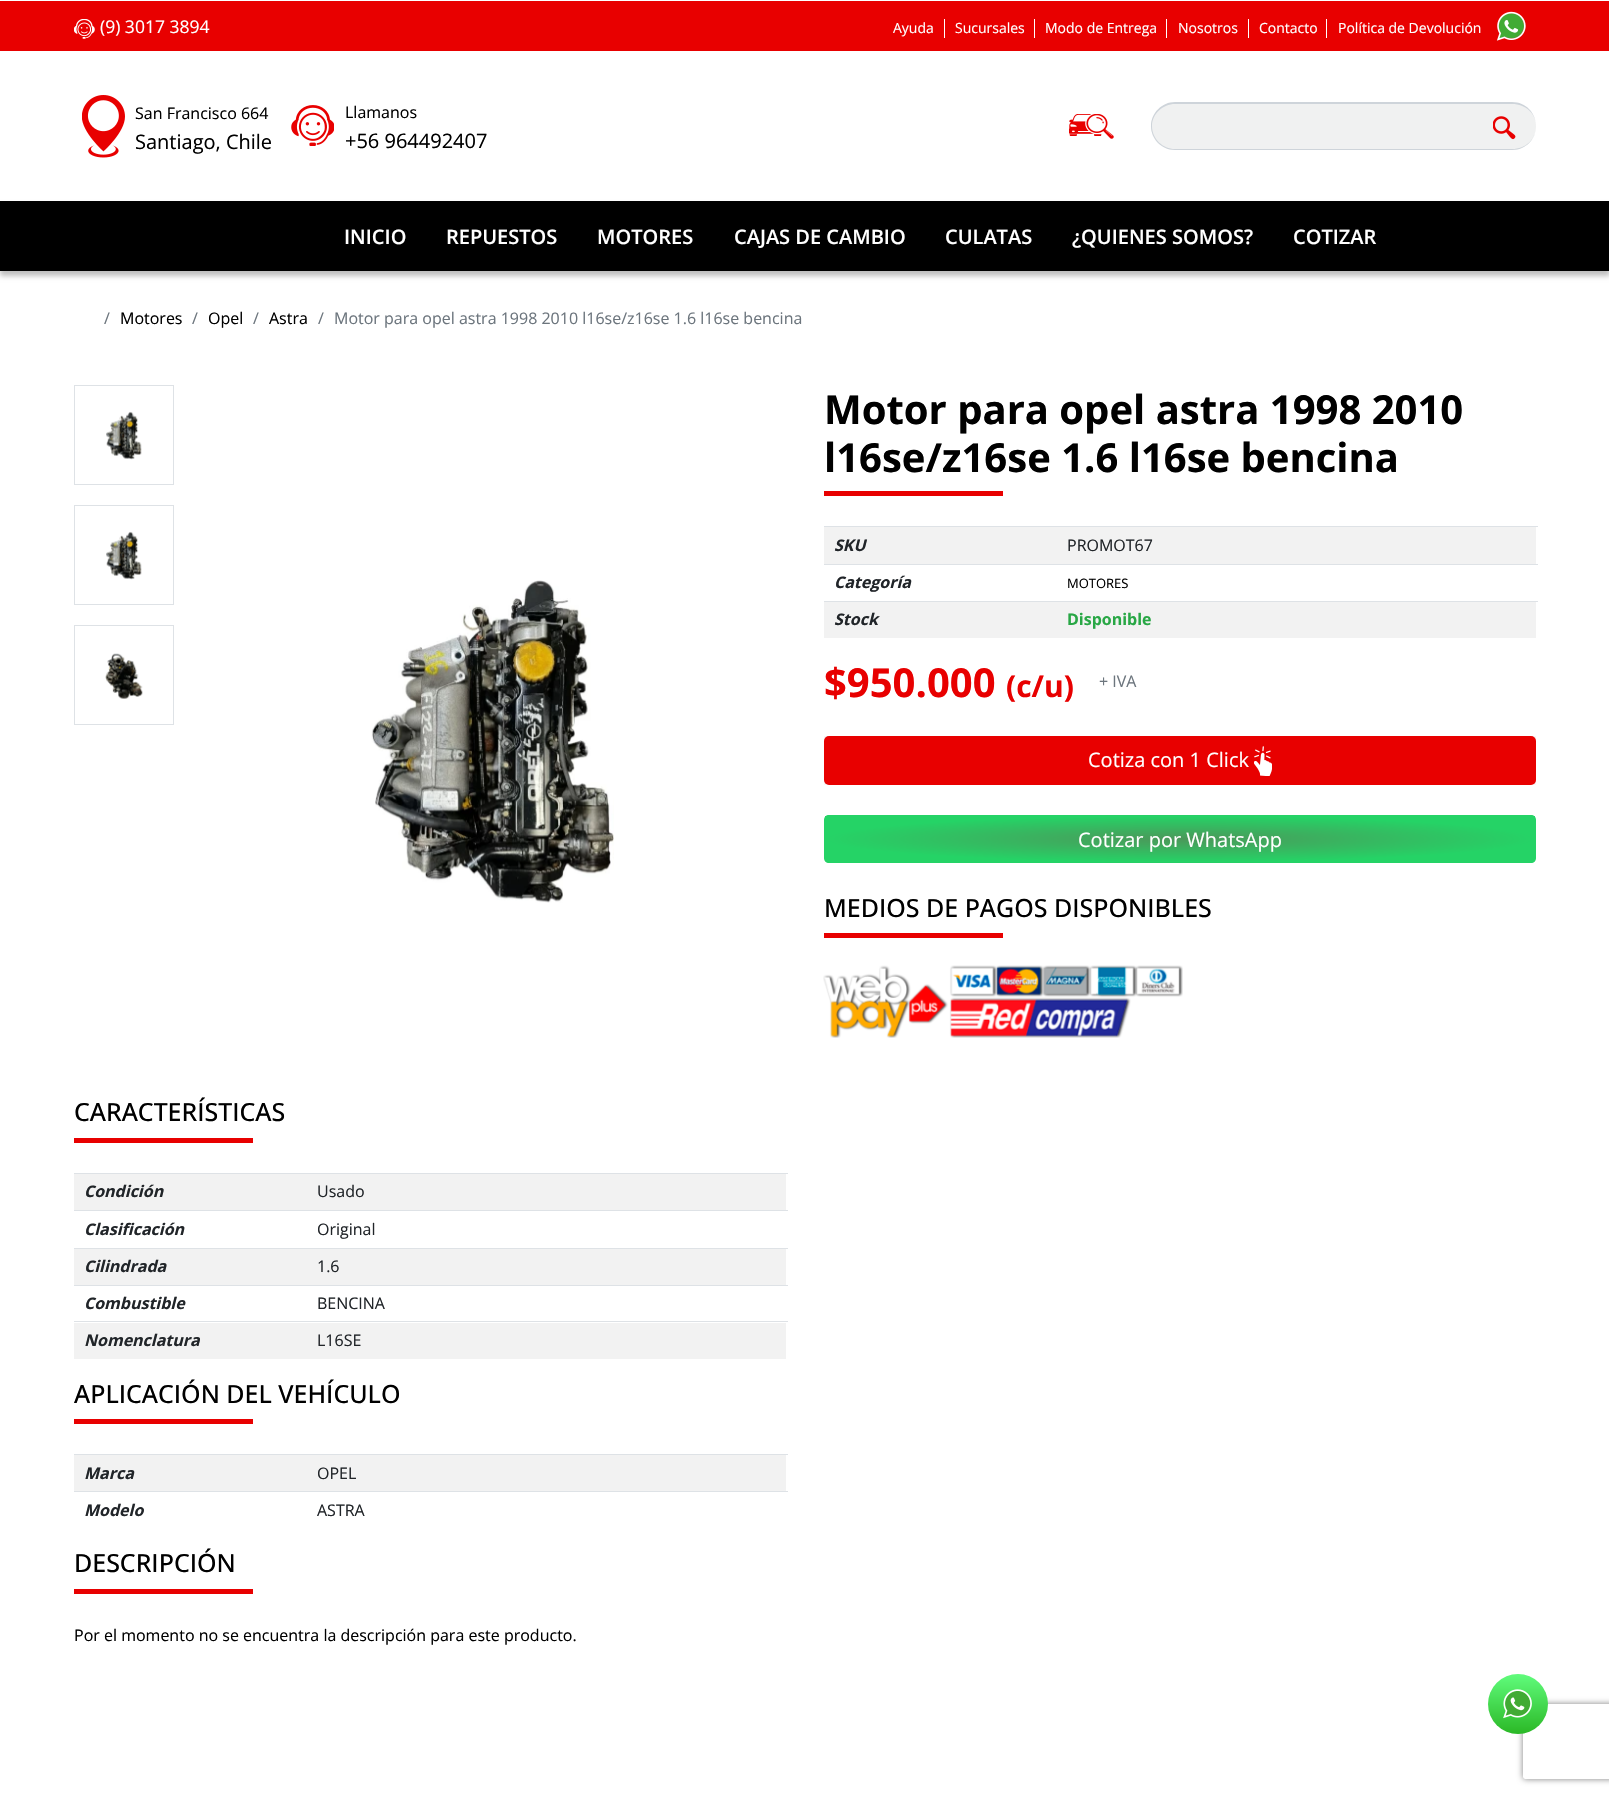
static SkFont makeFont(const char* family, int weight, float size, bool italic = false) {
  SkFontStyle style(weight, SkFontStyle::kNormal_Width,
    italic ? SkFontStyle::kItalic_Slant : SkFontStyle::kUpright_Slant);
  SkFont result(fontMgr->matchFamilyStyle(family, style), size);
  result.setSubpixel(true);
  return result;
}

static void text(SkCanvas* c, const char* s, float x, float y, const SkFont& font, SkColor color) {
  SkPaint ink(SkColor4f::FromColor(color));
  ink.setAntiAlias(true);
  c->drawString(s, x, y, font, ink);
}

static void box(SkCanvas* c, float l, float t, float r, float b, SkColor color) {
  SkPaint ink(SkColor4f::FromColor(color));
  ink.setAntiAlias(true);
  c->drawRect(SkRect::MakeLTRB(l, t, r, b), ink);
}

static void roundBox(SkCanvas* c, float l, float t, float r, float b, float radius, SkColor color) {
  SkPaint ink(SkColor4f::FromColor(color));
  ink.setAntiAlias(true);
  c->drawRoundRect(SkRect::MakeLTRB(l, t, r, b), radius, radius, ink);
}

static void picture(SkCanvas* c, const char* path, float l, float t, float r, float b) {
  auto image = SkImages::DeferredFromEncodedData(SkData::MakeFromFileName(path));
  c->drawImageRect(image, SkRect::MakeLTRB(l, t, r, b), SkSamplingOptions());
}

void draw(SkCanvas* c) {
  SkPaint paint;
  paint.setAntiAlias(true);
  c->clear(0xffffffff);
  box(c, 0, 1, 1609, 51, 0xffe80000);
  picture(c, "img_01.png", 74, 19, 95, 39);
  SkFont face1 = makeFont("Open Sans", 400, 17.5f);
  text(c, "(9) 3017 3894", 100, 33, face1, 0xffffffff);
  SkFont face2 = makeFont("Open Sans", 400, 14);
  text(c, "Ayuda", 893, 33, face2, 0xffffffff);
  text(c, "Sucursales", 955, 33, face2, 0xffffffff);
  box(c, 944, 19, 945, 38, 0xffffffff);
  text(c, "Modo de Entrega", 1045, 33, face2, 0xffffffff);
  box(c, 1034, 19, 1035, 38, 0xffffffff);
  text(c, "Nosotros", 1178, 33, face2, 0xffffffff);
  box(c, 1166, 19, 1167, 38, 0xffffffff);
  text(c, "Contacto", 1259, 33, face2, 0xffffffff);
  box(c, 1248, 19, 1249, 38, 0xffffffff);
  text(c, "Política de Devolución", 1338, 33, face2, 0xffffffff);
  box(c, 1326, 19, 1327, 38, 0xffffffff);
  picture(c, "img_02.png", 1496, 11, 1526, 41);
  picture(c, "img_03.png", 82, 95, 125, 158);
  SkFont face3 = makeFont("Open Sans", 400, 16);
  text(c, "San Francisco 664", 135, 119, face3, 0xff000000);
  SkFont face4 = makeFont("Open Sans", 400, 20);
  text(c, "Santiago, Chile", 135, 149, face4, 0xff000000);
  picture(c, "img_04.png", 291, 105, 334, 146);
  text(c, "Llamanos", 345, 118, face3, 0xff000000);
  text(c, "+56 964492407", 345, 148, face4, 0xff000000);
  picture(c, "img_05.png", 1069, 114, 1114, 139);
  roundBox(c, 1151, 103, 1536, 150, 23.5f, 0xfff0f1f1);
  paint.setColor(0xffced4da);
  c->drawPath(SkPathBuilder(SkPathFillType::kEvenOdd).moveTo(1175, 102).lineTo(1512, 102).cubicTo(1526, 102, 1536, 113, 1536, 126).cubicTo(1536, 139, 1526, 150, 1512, 150).lineTo(1175, 150).cubicTo(1162, 150, 1151, 139, 1151, 126).cubicTo(1151, 113, 1162, 102, 1175, 102).close().moveTo(1175, 104).lineTo(1512, 104).cubicTo(1526, 104, 1536, 114, 1536, 126).cubicTo(1536, 139, 1526, 149, 1512, 149).lineTo(1175, 149).cubicTo(1163, 149, 1152, 139, 1152, 126).cubicTo(1152, 114, 1163, 104, 1175, 104).close().detach(), paint);
  picture(c, "img_06.png", 1493, 116, 1516, 140);
  paint.setColor(0x40000000);
  paint.setMaskFilter(SkMaskFilter::MakeBlur(kNormal_SkBlurStyle, 2.5f));
  c->drawRect(SkRect::MakeLTRB(0, 206, 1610, 276), paint);
  paint.setMaskFilter(nullptr);
  box(c, 0, 201, 1609, 271, 0xff000000);
  SkFont face5 = makeFont("Open Sans", 600, 20);
  text(c, "INICIO", 344, 244, face5, 0xffffffff);
  text(c, "REPUESTOS", 446, 244, face5, 0xffffffff);
  text(c, "MOTORES", 597, 244, face5, 0xffffffff);
  text(c, "CAJAS DE CAMBIO", 734, 244, face5, 0xffffffff);
  text(c, "CULATAS", 945, 244, face5, 0xffffffff);
  text(c, "¿QUIENES SOMOS?", 1072, 244, face5, 0xffffffff);
  text(c, "COTIZAR", 1293, 244, face5, 0xffffffff);
  text(c, "/", 104, 324, face3, 0xff6c757d);
  text(c, "Motores", 120, 324, face3, 0xff000000);
  text(c, "/", 192, 324, face3, 0xff6c757d);
  text(c, "Opel", 208, 324, face3, 0xff000000);
  text(c, "/", 253, 324, face3, 0xff6c757d);
  text(c, "Astra", 269, 324, face3, 0xff000000);
  text(c, "/", 318, 324, face3, 0xff6c757d);
  text(c, "Motor para opel astra 1998 2010 l16se/z16se 1.6 l16se bencina", 334, 324, face3, 0xff6c757d);
  SkFont face6 = makeFont("Open Sans", 700, 40);
  text(c, "Motor para opel astra 1998 2010", 824, 424, face6, 0xff000000);
  text(c, "l16se/z16se 1.6 l16se bencina", 824, 472, face6, 0xff000000);
  box(c, 824, 491, 1003, 496, 0xffe80000);
  box(c, 824, 527, 1536, 564, 0xfff2f2f2);
  SkFont face7 = makeFont("Open Sans", 700, 16, true);
  text(c, "SKU", 834, 551, face7, 0xff212529);
  box(c, 824, 526, 1538, 527, 0xffdee2e6);
  text(c, "PROMOT67", 1067, 551, face3, 0xff212529);
  text(c, "Categoría", 834, 588, face7, 0xff212529);
  box(c, 824, 564, 1538, 565, 0xffdee2e6);
  SkFont face8 = makeFont("Open Sans", 400, 13);
  text(c, "MOTORES", 1067, 588, face8, 0xff000000);
  box(c, 824, 602, 1536, 638, 0xfff2f2f2);
  text(c, "Stock", 834, 625, face7, 0xff212529);
  box(c, 824, 601, 1538, 602, 0xffdee2e6);
  SkFont face9 = makeFont("Open Sans", 700, 16);
  text(c, "Disponible", 1067, 625, face9, 0xff28a745);
  text(c, "$950.000", 824, 697, face6, 0xffe80000);
  SkFont face10 = makeFont("Open Sans", 700, 30);
  text(c, "(c/u)", 1006, 697, face10, 0xffe80000);
  text(c, "+ IVA", 1099, 687, face3, 0xff6c757d);
  box(c, 824, 736, 1536, 785, 0xfff7f7f7);
  roundBox(c, 824, 736, 1536, 785, 5, 0xffe80000);
  text(c, "Cotiza con 1 Click", 1088, 767, face4, 0xffffffff);
  picture(c, "img_07.png", 1254, 746, 1272, 776);
  c->save();
  c->clipPath(SkPathBuilder().moveTo(829, 815).lineTo(1531, 815).cubicTo(1534, 815, 1536, 817, 1536, 820).lineTo(1536, 858).cubicTo(1536, 861, 1534, 863, 1531, 863).lineTo(829, 863).cubicTo(826, 863, 824, 861, 824, 858).lineTo(824, 820).cubicTo(824, 817, 826, 815, 829, 815).close().detach(), true);
  {
    const SkColor colors[] = {0xff4b985a, 0xff25d366};
    const float stops[] = {0, 1};
    SkMatrix m = SkMatrix::Translate(1180, 794).preScale(355, 23);
    paint.setShader(SkGradientShader::MakeRadial({0, 0}, 1, colors, stops, 2, SkTileMode::kClamp, 0, &m));
    paint.setAlpha(255);
  }
  c->drawRect(SkRect::MakeLTRB(825, 815, 1535, 816), paint);
  {
    const SkColor colors[] = {0xff4b985a, 0xff25d366};
    const float stops[] = {0, 1};
    SkMatrix m = SkMatrix::Translate(470, 839).preScale(355, 23);
    paint.setShader(SkGradientShader::MakeRadial({0, 0}, 1, colors, stops, 2, SkTileMode::kClamp, 0, &m));
    paint.setAlpha(255);
  }
  c->drawRect(SkRect::MakeLTRB(824, 816, 825, 861), paint);
  c->restore();
  {
    const SkColor colors[] = {0xff4b985a, 0xff25d366};
    const float stops[] = {0, 1};
    SkMatrix m = SkMatrix::Translate(1180, 839).preScale(355, 23);
    paint.setShader(SkGradientShader::MakeRadial({0, 0}, 1, colors, stops, 2, SkTileMode::kClamp, 0, &m));
    paint.setAlpha(255);
  }
  c->drawRect(SkRect::MakeLTRB(825, 816, 1535, 861), paint);
  c->save();
  c->clipPath(SkPathBuilder().moveTo(829, 815).lineTo(1531, 815).cubicTo(1534, 815, 1536, 817, 1536, 820).lineTo(1536, 858).cubicTo(1536, 861, 1534, 863, 1531, 863).lineTo(829, 863).cubicTo(826, 863, 824, 861, 824, 858).lineTo(824, 820).cubicTo(824, 817, 826, 815, 829, 815).close().detach(), true);
  {
    const SkColor colors[] = {0xff4b985a, 0xff25d366};
    const float stops[] = {0, 1};
    SkMatrix m = SkMatrix::Translate(1890, 839).preScale(355, 23);
    paint.setShader(SkGradientShader::MakeRadial({0, 0}, 1, colors, stops, 2, SkTileMode::kClamp, 0, &m));
    paint.setAlpha(255);
  }
  c->drawRect(SkRect::MakeLTRB(1535, 816, 1536, 861), paint);
  {
    const SkColor colors[] = {0xff4b985a, 0xff25d366};
    const float stops[] = {0, 1};
    SkMatrix m = SkMatrix::Translate(1180, 884).preScale(355, 23);
    paint.setShader(SkGradientShader::MakeRadial({0, 0}, 1, colors, stops, 2, SkTileMode::kClamp, 0, &m));
    paint.setAlpha(255);
  }
  c->drawRect(SkRect::MakeLTRB(825, 861, 1535, 863), paint);
  c->restore();
  text(c, "Cotizar por WhatsApp", 1078, 847, face4, 0xffffffff);
  SkFont face11 = makeFont("Open Sans", 500, 25);
  text(c, "MEDIOS DE PAGOS DISPONIBLES", 824, 917, face11, 0xff000000);
  box(c, 824, 933, 1003, 938, 0xffe80000);
  picture(c, "img_08.png", 823, 965, 1183, 1038);
  paint.setStyle(SkPaint::kStroke_Style);
  paint.setStrokeWidth(1);
  paint.setShader(nullptr);
  paint.setColor(0xffdee2e6);
  c->drawRect(SkRect::MakeLTRB(74.5f, 385.5f, 173.5f, 484.5f), paint);
  picture(c, "img_09.png", 106, 411, 142, 460);
  c->drawRect(SkRect::MakeLTRB(74.5f, 505.5f, 173.5f, 604.5f), paint);
  picture(c, "img_09.png", 106, 531, 142, 580);
  c->drawRect(SkRect::MakeLTRB(74.5f, 625.5f, 173.5f, 724.5f), paint);
  picture(c, "img_10.png", 105, 653, 143, 699);
  picture(c, "img_11.png", 371, 580, 614, 903);
  text(c, "CARACTERÍSTICAS", 74, 1121, face11, 0xff000000);
  box(c, 74, 1138, 253, 1143, 0xffe80000);
  box(c, 74, 1174, 786, 1210, 0xfff2f2f2);
  text(c, "Condición", 84, 1197, face7, 0xff212529);
  box(c, 74, 1173, 788, 1174, 0xffdee2e6);
  text(c, "Usado", 317, 1197, face3, 0xff212529);
  text(c, "Clasificación", 84, 1235, face7, 0xff212529);
  box(c, 74, 1210, 788, 1211, 0xffdee2e6);
  text(c, "Original", 317, 1235, face3, 0xff212529);
  box(c, 74, 1249, 786, 1285, 0xfff2f2f2);
  text(c, "Cilindrada", 84, 1272, face7, 0xff212529);
  box(c, 74, 1248, 788, 1249, 0xffdee2e6);
  text(c, "1.6", 317, 1272, face3, 0xff212529);
  text(c, "Combustible", 84, 1309, face7, 0xff212529);
  box(c, 74, 1285, 788, 1286, 0xffdee2e6);
  text(c, "BENCINA", 317, 1309, face3, 0xff212529);
  box(c, 74, 1323, 786, 1359, 0xfff2f2f2);
  text(c, "Nomenclatura", 84, 1346, face7, 0xff212529);
  box(c, 74, 1321, 788, 1322, 0xffdee2e6);
  text(c, "L16SE", 317, 1346, face3, 0xff212529);
  text(c, "APLICACIÓN DEL VEHÍCULO", 74, 1403, face11, 0xff000000);
  box(c, 74, 1419, 253, 1424, 0xffe80000);
  box(c, 74, 1455, 786, 1491, 0xfff2f2f2);
  text(c, "Marca", 84, 1479, face7, 0xff212529);
  box(c, 74, 1454, 788, 1455, 0xffdee2e6);
  text(c, "OPEL", 317, 1479, face3, 0xff212529);
  text(c, "Modelo", 84, 1516, face7, 0xff212529);
  box(c, 74, 1491, 788, 1492, 0xffdee2e6);
  text(c, "ASTRA", 317, 1516, face3, 0xff212529);
  text(c, "DESCRIPCIÓN", 74, 1572, face11, 0xff000000);
  box(c, 74, 1589, 253, 1594, 0xffe80000);
  text(c, "Por el momento no se encuentra la descripción para este producto.", 74, 1641, face3, 0xff000000);
  c->save();
  c->clipPath(SkPathBuilder(SkPathFillType::kEvenOdd).moveTo(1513, 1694).lineTo(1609, 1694).lineTo(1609, 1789).lineTo(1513, 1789).close().moveTo(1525.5f, 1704).lineTo(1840.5f, 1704).cubicTo(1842, 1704, 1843, 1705, 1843, 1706.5f).lineTo(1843, 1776.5f).cubicTo(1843, 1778, 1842, 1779, 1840.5f, 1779).lineTo(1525.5f, 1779).cubicTo(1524, 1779, 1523, 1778, 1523, 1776.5f).lineTo(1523, 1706.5f).cubicTo(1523, 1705, 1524, 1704, 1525.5f, 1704).close().detach(), true);
  paint.setStyle(SkPaint::kFill_Style);
  paint.setColor(0xff808080);
  paint.setMaskFilter(SkMaskFilter::MakeBlur(kNormal_SkBlurStyle, 3));
  c->drawRoundRect(SkRect::MakeLTRB(1523, 1704, 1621, 1779), 2.5f, 2.5f, paint);
  paint.setMaskFilter(nullptr);
  c->restore();
  {
    const SkColor colors[] = {0xff60fc7c, 0xff2bb826};
    const float stops[] = {0, 1};
    const SkPoint ends[] = {{1518, 1674}, {1518, 1734}};
    paint.setShader(SkGradientShader::MakeLinear(ends, colors, stops, 2, SkTileMode::kClamp));
    paint.setAlpha(255);
  }
  c->drawCircle(1518, 1704, 30, paint);
  picture(c, "img_12.png", 1503, 1689, 1532, 1719);
}
